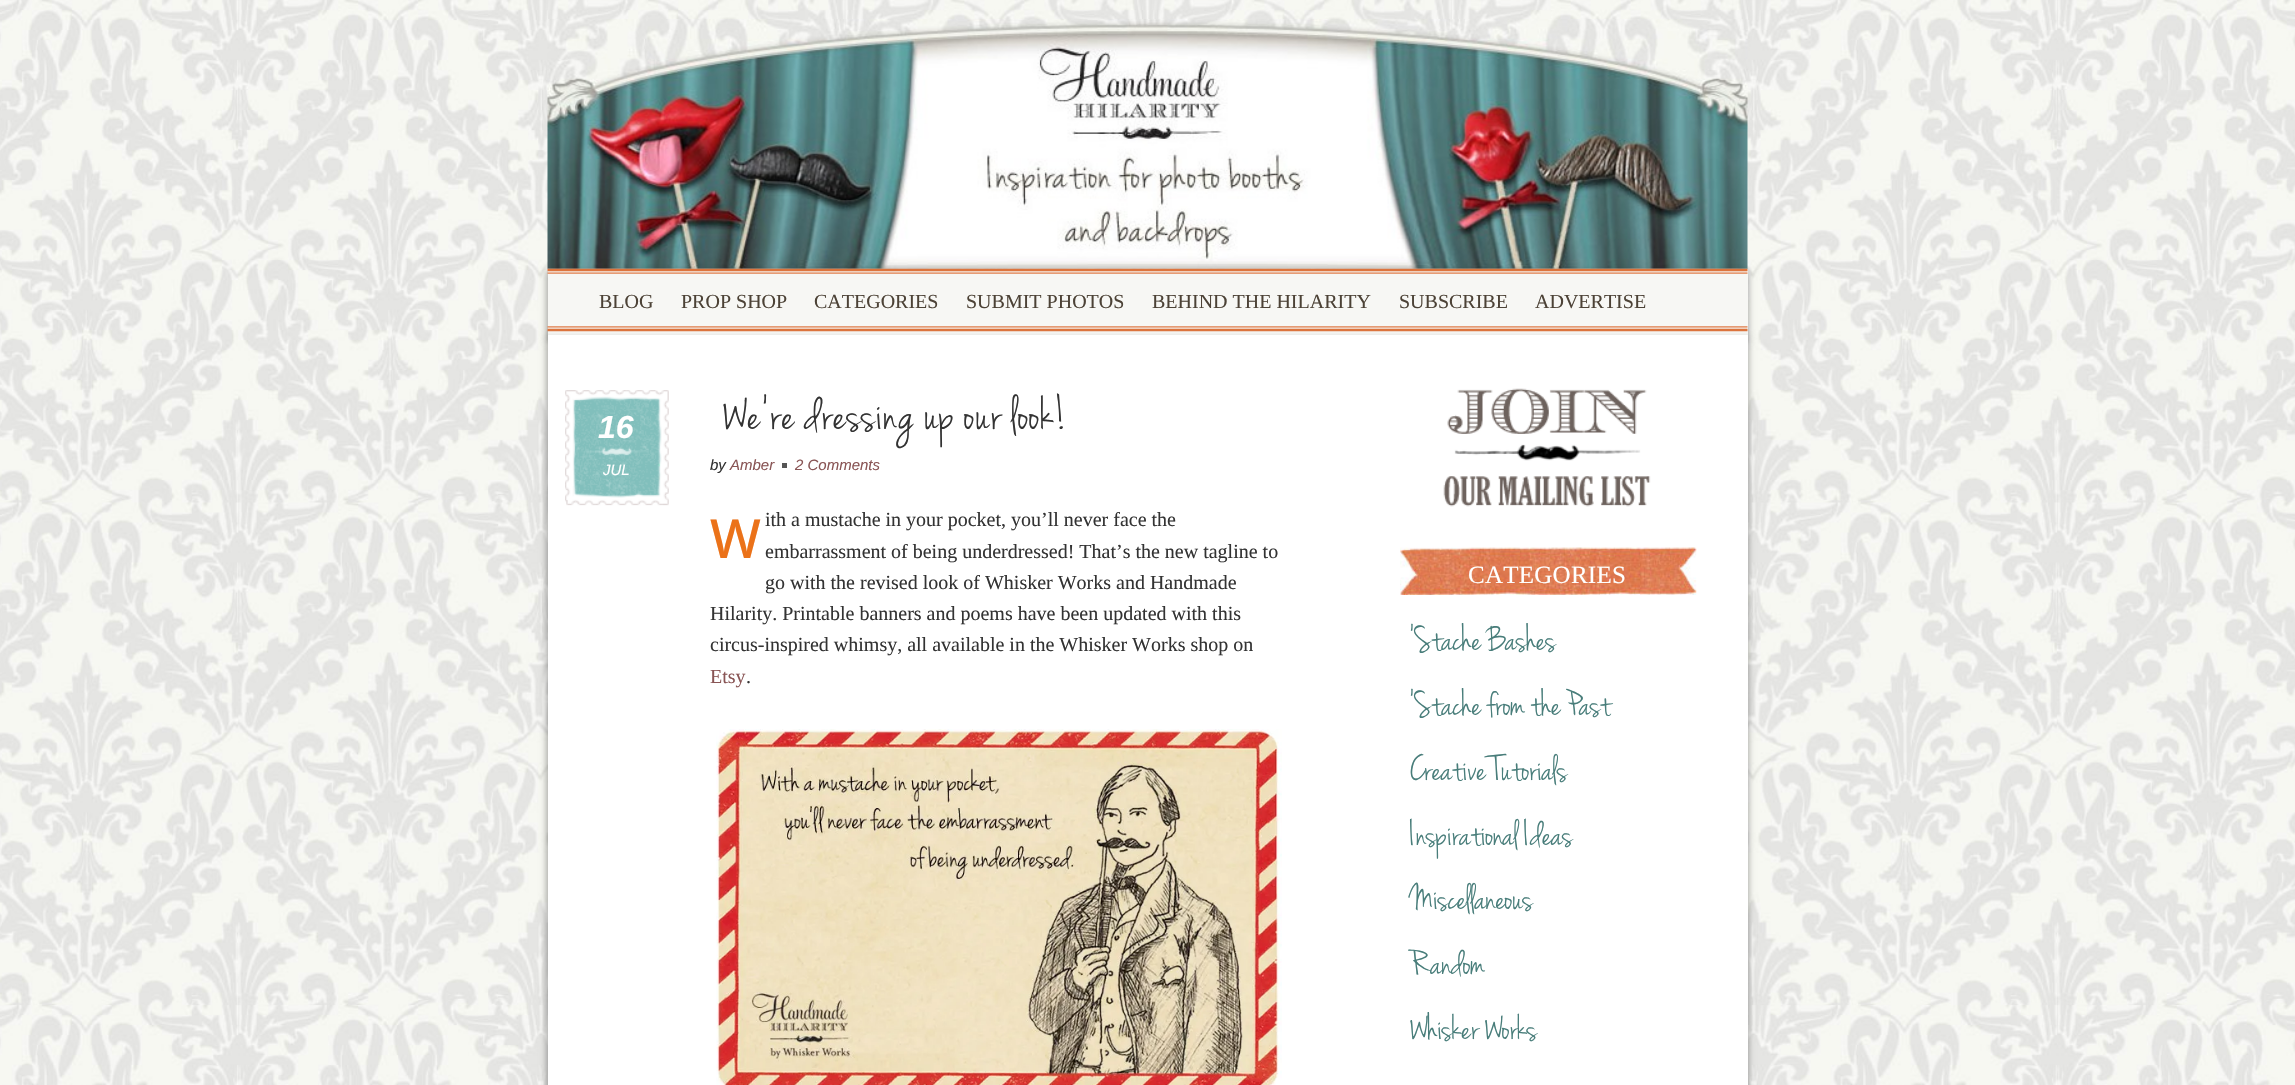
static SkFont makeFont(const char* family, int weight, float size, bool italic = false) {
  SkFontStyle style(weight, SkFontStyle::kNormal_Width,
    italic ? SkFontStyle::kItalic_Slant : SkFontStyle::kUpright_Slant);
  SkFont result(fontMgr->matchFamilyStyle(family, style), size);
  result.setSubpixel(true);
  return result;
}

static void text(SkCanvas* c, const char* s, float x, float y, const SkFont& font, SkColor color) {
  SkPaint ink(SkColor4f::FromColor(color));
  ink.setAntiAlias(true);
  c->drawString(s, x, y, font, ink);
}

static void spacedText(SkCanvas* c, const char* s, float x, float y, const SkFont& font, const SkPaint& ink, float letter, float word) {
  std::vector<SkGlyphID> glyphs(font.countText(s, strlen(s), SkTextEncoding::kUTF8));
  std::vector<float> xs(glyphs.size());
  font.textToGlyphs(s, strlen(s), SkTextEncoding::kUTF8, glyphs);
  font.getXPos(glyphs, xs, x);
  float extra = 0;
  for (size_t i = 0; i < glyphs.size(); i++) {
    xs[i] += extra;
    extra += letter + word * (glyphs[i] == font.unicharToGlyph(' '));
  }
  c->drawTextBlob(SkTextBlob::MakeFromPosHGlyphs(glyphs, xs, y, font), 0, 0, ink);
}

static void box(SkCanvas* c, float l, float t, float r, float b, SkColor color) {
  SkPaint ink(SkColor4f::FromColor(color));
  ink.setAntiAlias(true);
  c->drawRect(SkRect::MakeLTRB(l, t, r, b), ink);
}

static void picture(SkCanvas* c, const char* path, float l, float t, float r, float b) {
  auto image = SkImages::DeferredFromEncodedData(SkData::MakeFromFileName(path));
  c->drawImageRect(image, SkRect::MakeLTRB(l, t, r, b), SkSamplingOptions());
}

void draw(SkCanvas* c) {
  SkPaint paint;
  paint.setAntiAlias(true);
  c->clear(0xffffffff);
  picture(c, "img_01.png", 0, 0, 2295, 1085);
  picture(c, "img_02.png", 547, 19, 1748, 269);
  paint.setColor(0x4d000000);
  paint.setMaskFilter(SkMaskFilter::MakeBlur(kNormal_SkBlurStyle, 3));
  c->drawRect(SkRect::MakeLTRB(546, 271, 1749, 340), paint);
  paint.setMaskFilter(nullptr);
  box(c, 548, 269, 1748, 335, 0xfff7f7f4);
  picture(c, "img_03.png", 547, 268, 1748, 332);
  SkFont face1 = makeFont("Liberation Serif", 400, 20);
  text(c, "BLOG", 599, 308, face1, 0xff4c4236);
  text(c, "PROP SHOP", 681, 308, face1, 0xff4c4236);
  text(c, "CATEGORIES", 814, 308, face1, 0xff4c4236);
  text(c, "SUBMIT PHOTOS", 966, 308, face1, 0xff4c4236);
  text(c, "BEHIND THE HILARITY", 1152, 308, face1, 0xff4c4236);
  text(c, "SUBSCRIBE", 1399, 308, face1, 0xff4c4236);
  text(c, "ADVERTISE", 1535, 308, face1, 0xff4c4236);
  paint.setMaskFilter(SkMaskFilter::MakeBlur(kNormal_SkBlurStyle, 3));
  c->drawRect(SkRect::MakeLTRB(546, 338, 1749, 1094), paint);
  paint.setMaskFilter(nullptr);
  box(c, 548, 335, 1748, 1085, 0xffffffff);
  SkFont face2 = makeFont("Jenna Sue", 400, 50);
  paint.setColor(0xff333333);
  spacedText(c, "We’re dressing up our look!", 723, 429, face2, paint, 1.25f, 0);
  picture(c, "img_04.png", 565, 390, 669, 506);
  SkFont face3 = makeFont("Liberation Sans", 700, 32, true);
  text(c, "16", 598, 438, face3, 0xffffffff);
  SkFont face4 = makeFont("Liberation Sans", 400, 15, true);
  text(c, "JUL", 603, 475, face4, 0xffffffff);
  text(c, "by", 710, 470, face4, 0xff333333);
  text(c, "Amber", 730, 470, face4, 0xff895555);
  text(c, "2 Comments", 795, 470, face4, 0xff895555);
  box(c, 782, 463, 787, 468, 0xff555555);
  SkFont face5 = makeFont("Noto Sans", 500, 54);
  text(c, "W", 710, 558, face5, 0xffeb7219);
  text(c, "ith a mustache in your pocket, you’ll never face the", 765, 526, face1, 0xff333333);
  text(c, "embarrassment of being underdressed! That’s the new tagline to", 765, 558, face1, 0xff333333);
  text(c, "go with the revised look of Whisker Works and Handmade", 765, 589, face1, 0xff333333);
  text(c, "Hilarity. Printable banners and poems have been updated with this", 710, 620, face1, 0xff333333);
  text(c, "circus-inspired whimsy, all available in the Whisker Works shop on", 710, 651, face1, 0xff333333);
  text(c, "Etsy", 710, 683, face1, 0xff895555);
  text(c, ".", 746, 683, face1, 0xff333333);
  picture(c, "img_05.png", 716, 729, 1282, 1085);
  picture(c, "img_06.png", 1443, 388, 1651, 507);
  picture(c, "img_07.png", 1400, 547, 1697, 595);
  SkFont face6 = makeFont("Liberation Serif", 400, 25);
  paint.setColor(0xffffffff);
  spacedText(c, "CATEGORIES", 1468, 583, face6, paint, 0.25f, 0);
  SkFont face7 = makeFont("Jenna Sue", 400, 37.5f);
  text(c, "'Stache Bashes", 1410, 650, face7, 0xff487d7a);
  text(c, "'Stache from the Past", 1410, 715, face7, 0xff487d7a);
  text(c, "Creative Tutorials", 1410, 780, face7, 0xff487d7a);
  text(c, "Inspirational Ideas", 1410, 845, face7, 0xff487d7a);
  text(c, "Miscellaneous", 1410, 909, face7, 0xff487d7a);
  text(c, "Random", 1410, 974, face7, 0xff487d7a);
  text(c, "Whisker Works", 1410, 1039, face7, 0xff487d7a);
}
